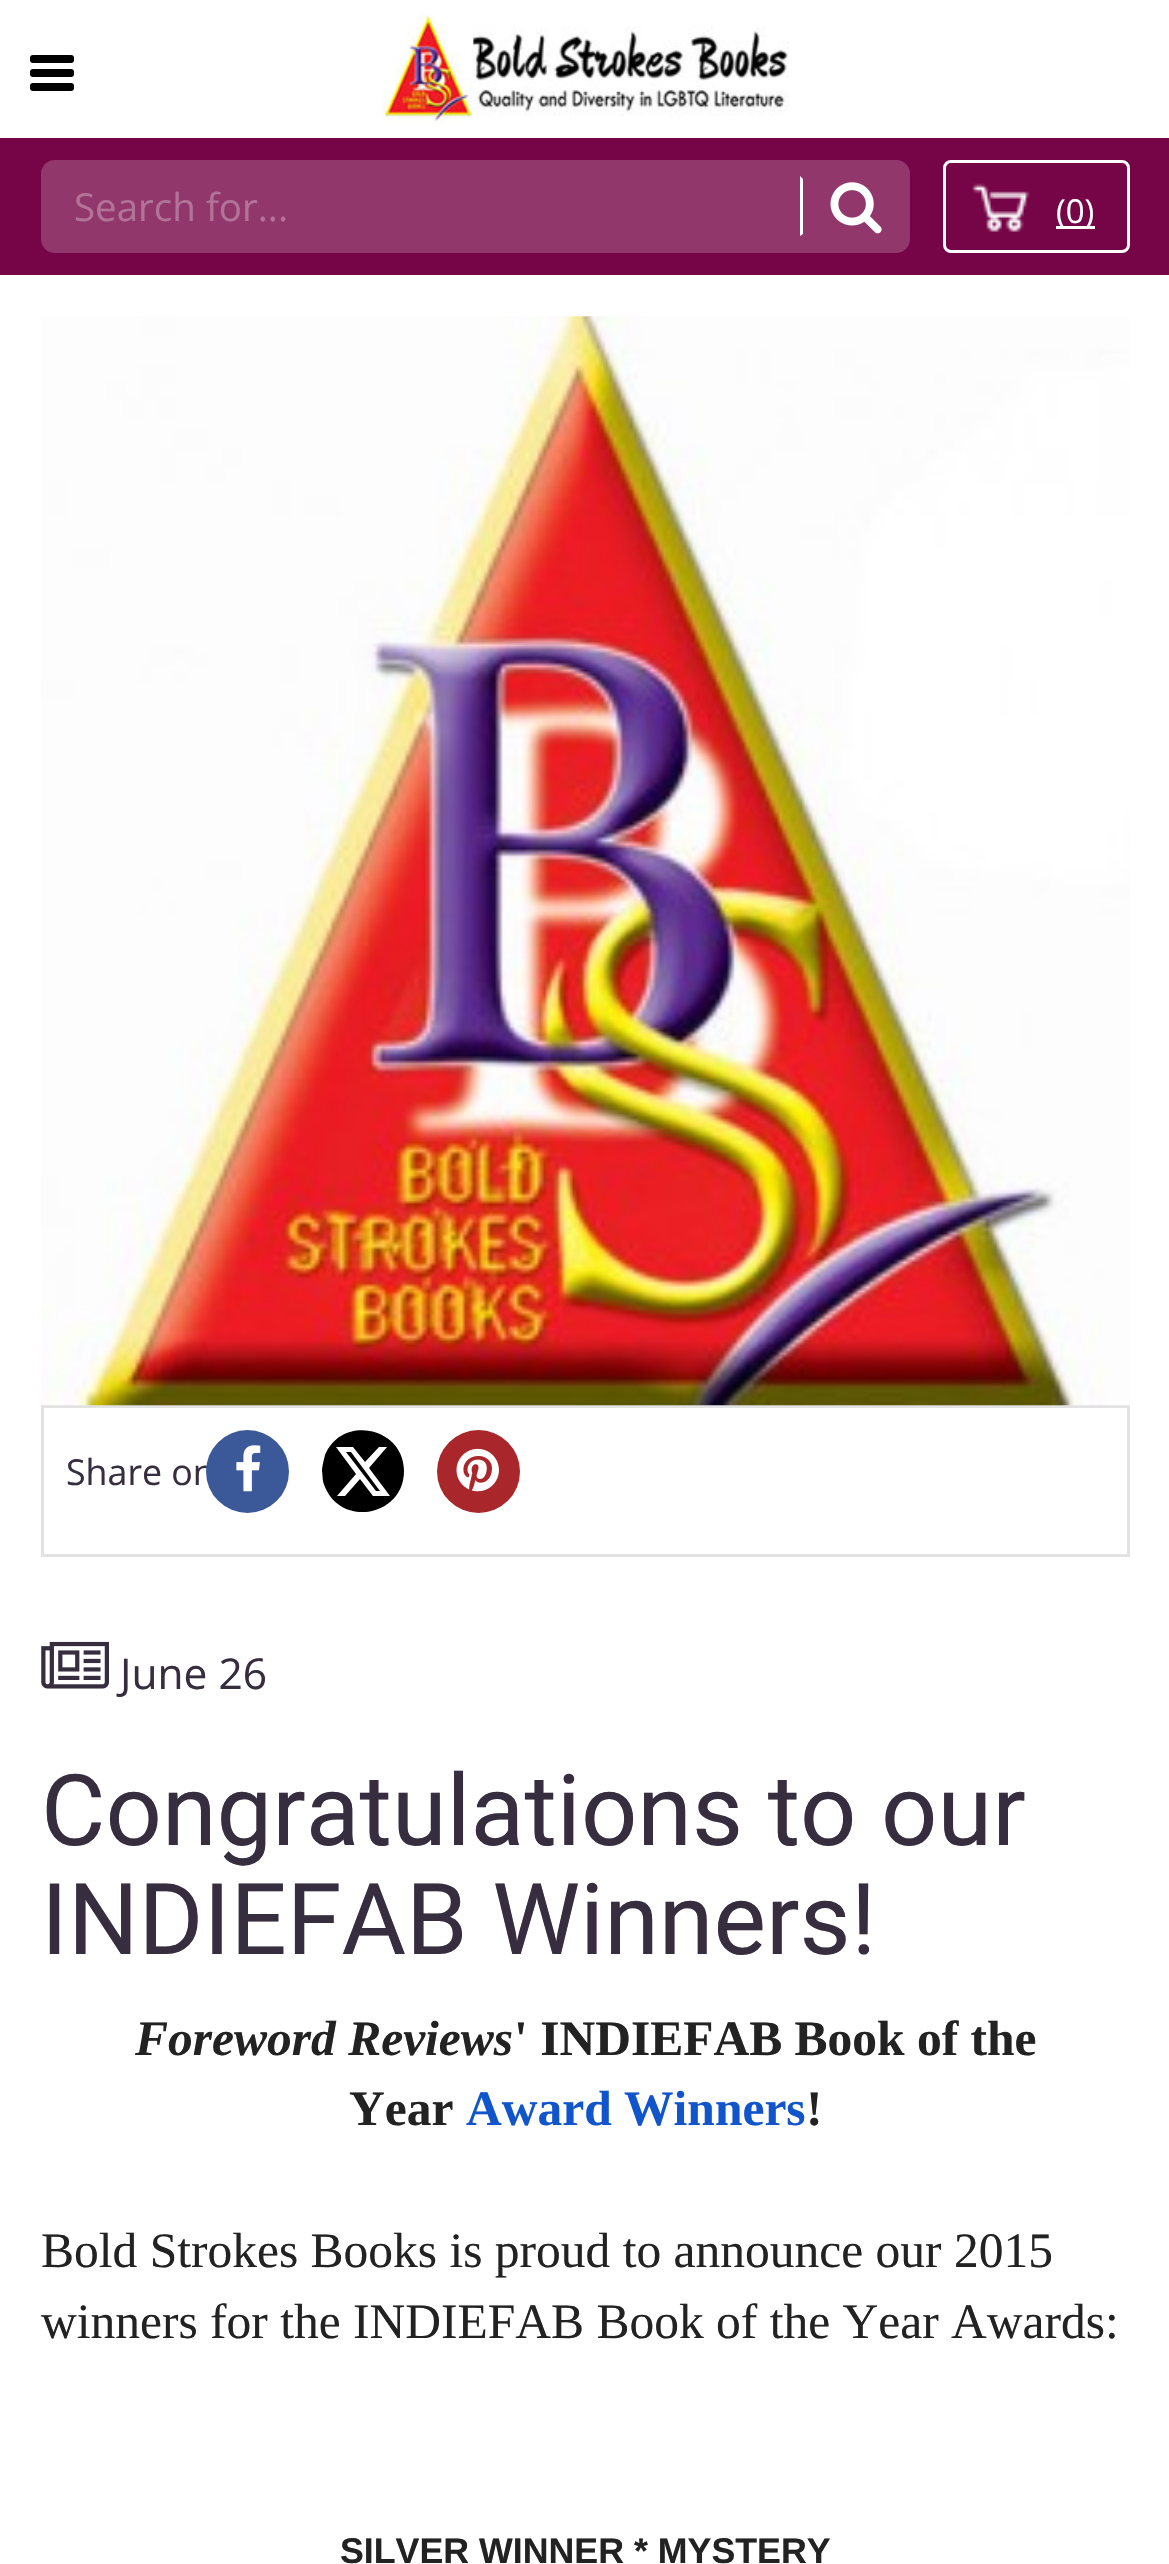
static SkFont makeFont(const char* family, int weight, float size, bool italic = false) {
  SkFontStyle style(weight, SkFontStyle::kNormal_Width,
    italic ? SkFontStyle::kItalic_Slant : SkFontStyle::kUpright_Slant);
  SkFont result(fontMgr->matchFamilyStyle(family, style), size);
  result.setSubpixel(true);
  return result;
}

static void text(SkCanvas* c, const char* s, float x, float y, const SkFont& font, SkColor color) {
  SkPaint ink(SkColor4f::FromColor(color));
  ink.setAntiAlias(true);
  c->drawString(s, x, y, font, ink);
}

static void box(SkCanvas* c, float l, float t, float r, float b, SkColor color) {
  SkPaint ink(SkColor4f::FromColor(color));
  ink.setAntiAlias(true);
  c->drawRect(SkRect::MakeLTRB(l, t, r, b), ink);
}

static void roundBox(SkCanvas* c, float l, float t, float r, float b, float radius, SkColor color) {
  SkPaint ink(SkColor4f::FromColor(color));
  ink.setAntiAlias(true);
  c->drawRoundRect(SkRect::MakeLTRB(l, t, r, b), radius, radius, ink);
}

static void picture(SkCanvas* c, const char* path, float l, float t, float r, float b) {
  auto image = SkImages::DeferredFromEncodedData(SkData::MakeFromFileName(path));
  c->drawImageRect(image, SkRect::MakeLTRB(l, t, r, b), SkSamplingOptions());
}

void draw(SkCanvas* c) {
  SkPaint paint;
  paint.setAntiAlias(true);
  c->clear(0xffffffff);
  roundBox(c, 30, 55, 74, 63, 3, 0xff000000);
  roundBox(c, 30, 69, 74, 77, 3, 0xff000000);
  roundBox(c, 30, 83, 74, 91, 3, 0xff000000);
  picture(c, "img_01.png", 382, 14, 789, 124);
  box(c, 0, 138, 1169, 275, 0xff760547);
  roundBox(c, 41, 160, 910, 253, 14, 0xff91376c);
  SkFont face1 = makeFont("Open Sans", 400, 38.5f);
  text(c, "Search for...", 74, 221, face1, 0xffb27398);
  paint.setColor(0xffffffff);
  c->drawPath(SkPathBuilder().moveTo(800, 236).lineTo(800, 176).lineTo(803, 179).lineTo(803, 234).close().detach(), paint);
  picture(c, "img_02.png", 830, 182, 882, 234);
  paint.setStyle(SkPaint::kStroke_Style);
  paint.setStrokeWidth(3);
  c->drawRoundRect(SkRect::MakeLTRB(944.5f, 161.5f, 1128.5f, 251.5f), 6.5f, 6.5f, paint);
  picture(c, "img_03.png", 972, 183, 1030, 232);
  box(c, 1056, 226, 1095, 229, 0xffffffff);
  SkFont face2 = makeFont("Open Sans", 400, 33);
  text(c, "(0)", 1056, 223, face2, 0xffffffff);
  paint.setColor(0xffe2e2e2);
  c->drawRect(SkRect::MakeLTRB(42.5f, 1406.5f, 1128.5f, 1555.5f), paint);
  picture(c, "img_04.png", 41, 316, 1130, 1406);
  SkFont face3 = makeFont("Open Sans", 400, 35.75f);
  text(c, "Share on", 66, 1485, face3, 0xff362d3f);
  paint.setStyle(SkPaint::kFill_Style);
  paint.setColor(0xff3b5998);
  c->drawCircle(247.5f, 1471.5f, 41.5f, paint);
  picture(c, "img_05.png", 236, 1445, 261, 1492);
  paint.setColor(0xff000000);
  c->drawPath(SkPathBuilder().moveTo(404, 1471).cubicTo(404, 1427, 342, 1414, 325, 1455).cubicTo(324, 1459, 322, 1467, 322, 1471).cubicTo(323, 1478, 322, 1480, 325, 1487).cubicTo(342, 1528, 404, 1516, 404, 1471).close().detach(), paint);
  paint.setColor(0xffffffff);
  c->drawPath(SkPathBuilder().moveTo(379, 1447).lineTo(387, 1447).lineTo(369, 1468).lineTo(390, 1496).lineTo(373, 1496).lineTo(360, 1479).lineTo(345, 1496).lineTo(337, 1496).lineTo(356, 1474).lineTo(336, 1447).lineTo(353, 1447).lineTo(365, 1462).close().moveTo(376, 1491).lineTo(380, 1491).lineTo(351, 1452).lineTo(346, 1452).close().detach(), paint);
  paint.setColor(0xffa9262a);
  c->drawCircle(478.5f, 1471.5f, 41.5f, paint);
  picture(c, "img_06.png", 456, 1448, 499, 1492);
  picture(c, "img_07.png", 41, 1641, 109, 1689);
  SkFont face4 = makeFont("Open Sans", 400, 42.5f);
  text(c, "June 26", 120, 1689, face4, 0xff362d3f);
  SkFont face5 = makeFont("Roboto", 400, 99);
  text(c, "Congratulations to our", 41, 1845, face5, 0xff362d3f);
  text(c, "INDIEFAB Winners!", 41, 1954, face5, 0xff362d3f);
  SkFont face6 = makeFont("Liberation Serif", 700, 49.5f, true);
  text(c, "Foreword Reviews", 135, 2055, face6, 0xff222222);
  SkFont face7 = makeFont("Liberation Serif", 700, 49.5f);
  text(c, "' INDIEFAB Book of the", 514, 2055, face7, 0xff222222);
  text(c, "Year", 349, 2125, face7, 0xff222222);
  text(c, "Award Winners", 466, 2125, face7, 0xff1155cc);
  text(c, "!", 806, 2125, face7, 0xff222222);
  SkFont face8 = makeFont("Liberation Serif", 400, 49.5f);
  text(c, "Bold Strokes Books is proud to announce our 2015", 41, 2267, face8, 0xff222222);
  text(c, "winners for the INDIEFAB Book of the Year Awards:", 41, 2338, face8, 0xff222222);
  SkFont face9 = makeFont("Liberation Sans", 700, 35.75f);
  text(c, "SILVER WINNER * MYSTERY", 340, 2563, face9, 0xff222222);
}
